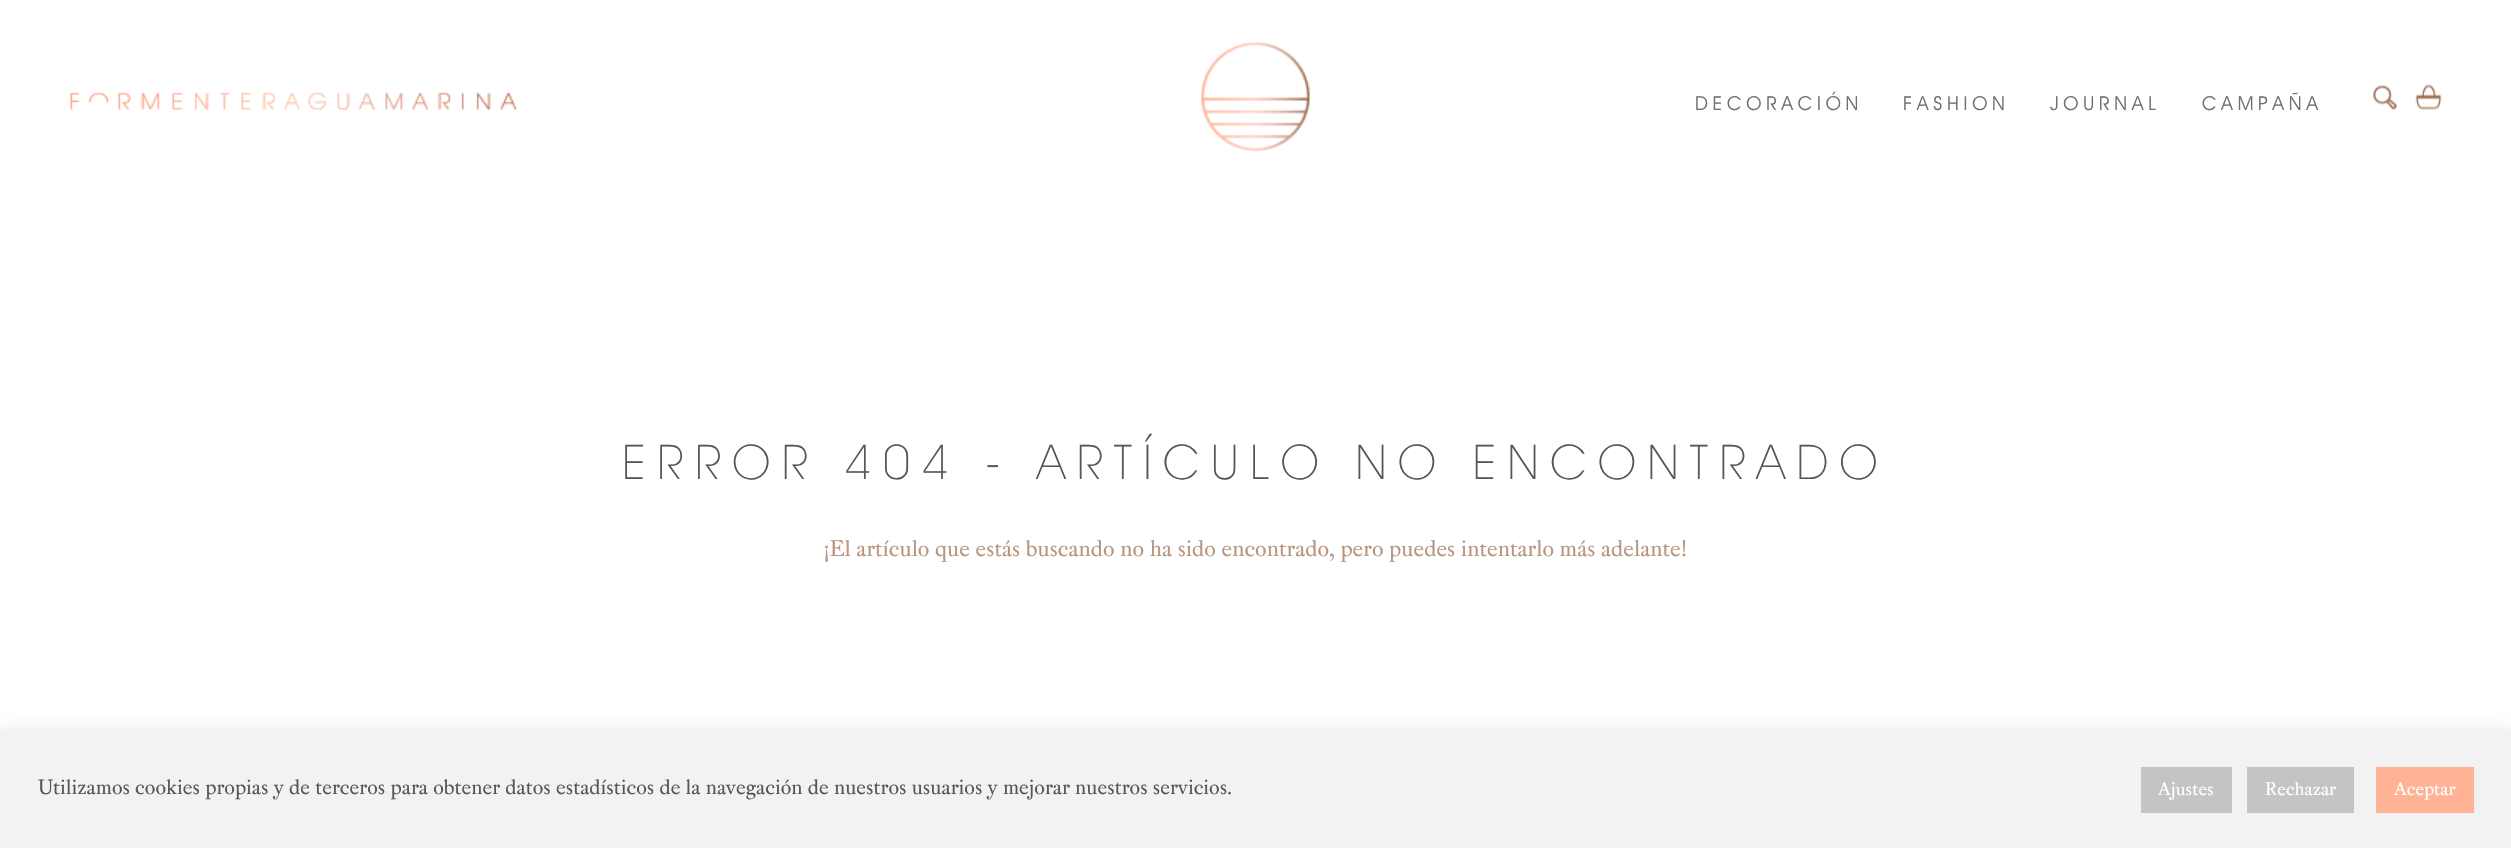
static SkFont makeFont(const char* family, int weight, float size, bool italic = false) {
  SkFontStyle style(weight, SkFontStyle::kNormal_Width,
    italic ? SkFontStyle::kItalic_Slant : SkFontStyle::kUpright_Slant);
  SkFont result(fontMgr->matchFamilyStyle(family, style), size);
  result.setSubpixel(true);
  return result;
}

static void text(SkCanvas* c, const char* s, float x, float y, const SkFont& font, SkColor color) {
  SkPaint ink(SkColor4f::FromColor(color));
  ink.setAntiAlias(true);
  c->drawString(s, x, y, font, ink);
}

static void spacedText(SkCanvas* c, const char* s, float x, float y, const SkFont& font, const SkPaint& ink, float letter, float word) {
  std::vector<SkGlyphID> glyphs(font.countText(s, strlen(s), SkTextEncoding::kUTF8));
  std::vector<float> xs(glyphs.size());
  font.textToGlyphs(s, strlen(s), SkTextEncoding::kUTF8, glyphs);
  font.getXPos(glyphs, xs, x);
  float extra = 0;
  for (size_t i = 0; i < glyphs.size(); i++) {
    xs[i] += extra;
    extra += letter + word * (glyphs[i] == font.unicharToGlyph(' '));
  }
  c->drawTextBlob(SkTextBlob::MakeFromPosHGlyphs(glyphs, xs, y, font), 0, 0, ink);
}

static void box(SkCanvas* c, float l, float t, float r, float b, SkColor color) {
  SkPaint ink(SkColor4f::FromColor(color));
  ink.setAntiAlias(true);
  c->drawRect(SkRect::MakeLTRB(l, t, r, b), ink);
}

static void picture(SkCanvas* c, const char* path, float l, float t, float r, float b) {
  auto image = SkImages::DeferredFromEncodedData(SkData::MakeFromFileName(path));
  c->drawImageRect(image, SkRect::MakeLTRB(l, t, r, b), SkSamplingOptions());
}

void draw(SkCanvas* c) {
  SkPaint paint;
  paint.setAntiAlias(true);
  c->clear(0xffffffff);
  picture(c, "img_01.png", 70, 92, 517, 110);
  picture(c, "img_02.png", 1201, 41, 1310, 152);
  SkFont face1 = makeFont("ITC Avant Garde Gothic", 400, 19.25f);
  paint.setColor(0xff6d6e70);
  spacedText(c, "DECORACIÓN", 1695, 110, face1, paint, 4.75f, 0);
  spacedText(c, "FASHION", 1903, 110, face1, paint, 4.75f, 0);
  spacedText(c, "JOURNAL", 2050, 110, face1, paint, 4.75f, 0);
  spacedText(c, "CAMPAÑA", 2202, 110, face1, paint, 4.75f, 0);
  picture(c, "img_03.png", 2373, 85, 2397, 110);
  picture(c, "img_04.png", 2415, 84, 2442, 110);
  SkFont face2 = makeFont("ITC Avant Garde Gothic", 200, 48);
  paint.setColor(0xff565656);
  spacedText(c, "ERROR 404 - ARTÍCULO NO ENCONTRADO", 622, 479, face2, paint, 11.5f, 0);
  SkFont face3 = makeFont("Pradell", 400, 24);
  text(c, "¡El artículo que estás buscando no ha sido encontrado, pero puedes intentarlo más adelante!", 824, 556, face3, 0xffb9947e);
  paint.setColor(0x4dacabab);
  paint.setMaskFilter(SkMaskFilter::MakeBlur(kNormal_SkBlurStyle, 7.5f));
  c->drawRect(SkRect::MakeLTRB(0, 729, 2511, 848), paint);
  paint.setMaskFilter(nullptr);
  box(c, 0, 731, 2511, 848, 0xfff2f2f2);
  SkFont face4 = makeFont("Pradell", 400, 22);
  text(c, "Utilizamos cookies propias y de terceros para obtener datos estadísticos de la navegación de nuestros usuarios y mejorar nuestros servicios.", 38, 794, face4, 0xff565656);
  box(c, 2141, 767, 2232, 813, 0xffc4c4c4);
  SkFont face5 = makeFont("Pradell", 400, 19.5f);
  text(c, "Ajustes", 2158, 795, face5, 0xffffffff);
  box(c, 2247, 767, 2354, 813, 0xffc4c4c4);
  text(c, "Rechazar", 2265, 795, face5, 0xffffffff);
  box(c, 2376, 767, 2474, 813, 0xffffb294);
  text(c, "Aceptar", 2394, 795, face5, 0xffffffff);
}
